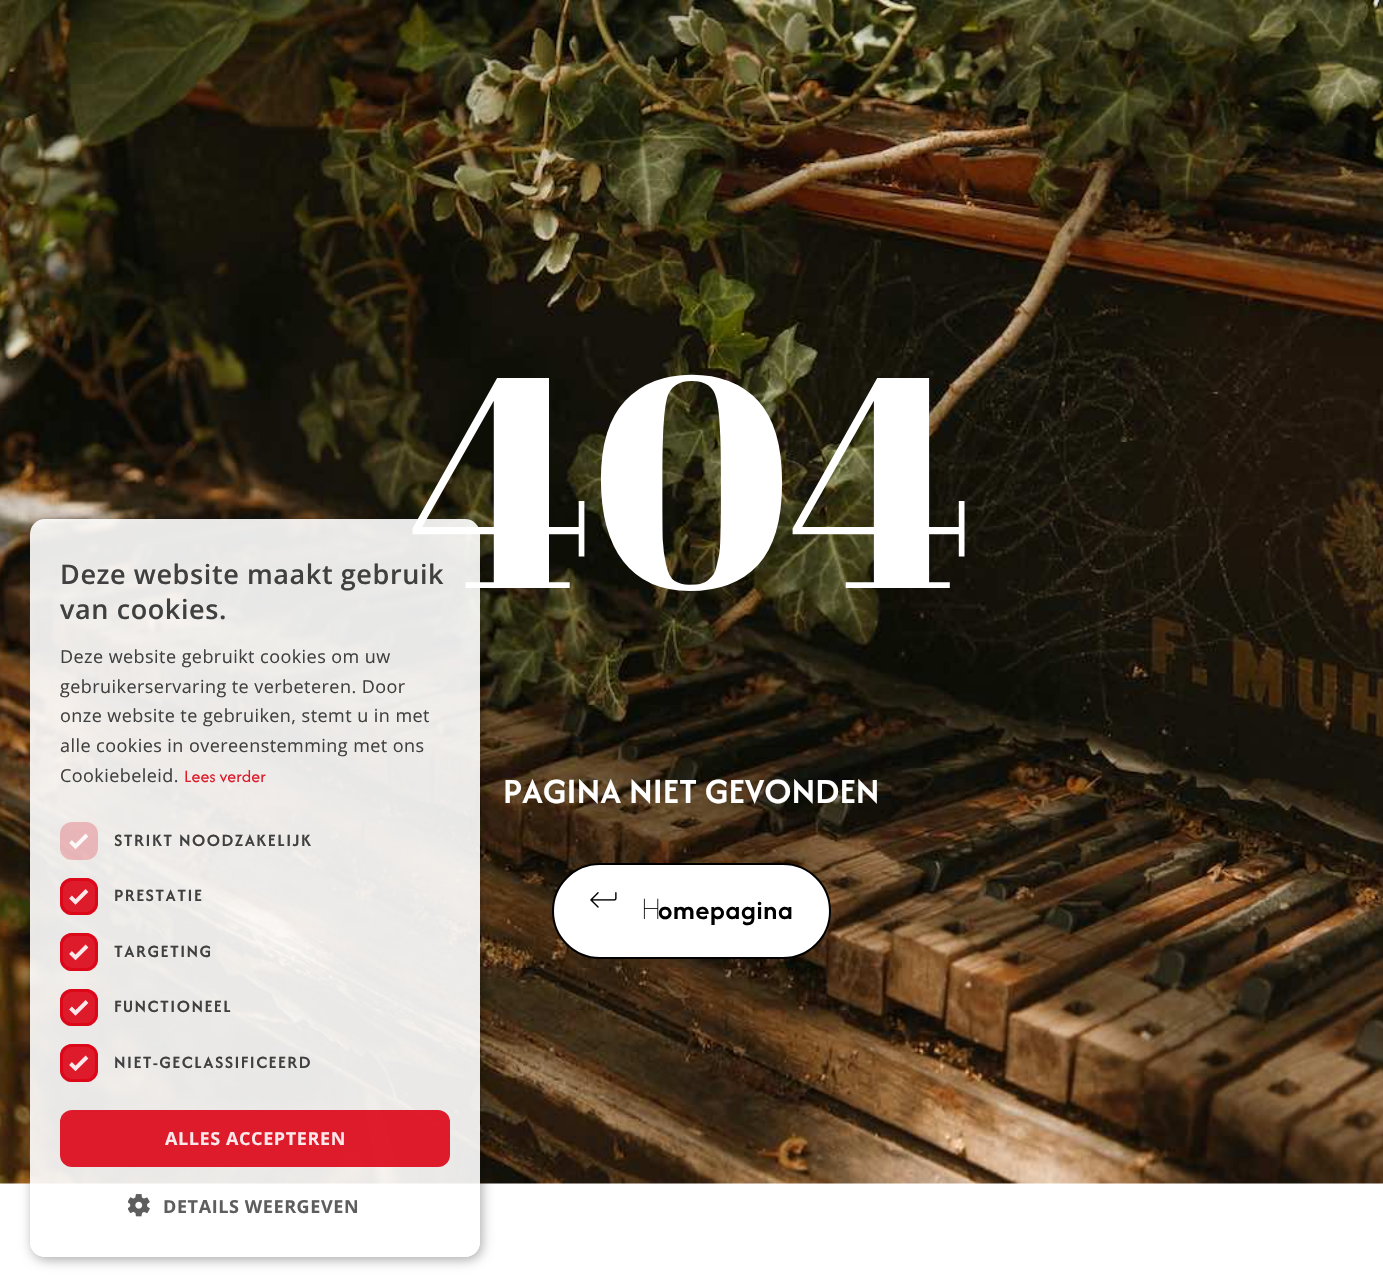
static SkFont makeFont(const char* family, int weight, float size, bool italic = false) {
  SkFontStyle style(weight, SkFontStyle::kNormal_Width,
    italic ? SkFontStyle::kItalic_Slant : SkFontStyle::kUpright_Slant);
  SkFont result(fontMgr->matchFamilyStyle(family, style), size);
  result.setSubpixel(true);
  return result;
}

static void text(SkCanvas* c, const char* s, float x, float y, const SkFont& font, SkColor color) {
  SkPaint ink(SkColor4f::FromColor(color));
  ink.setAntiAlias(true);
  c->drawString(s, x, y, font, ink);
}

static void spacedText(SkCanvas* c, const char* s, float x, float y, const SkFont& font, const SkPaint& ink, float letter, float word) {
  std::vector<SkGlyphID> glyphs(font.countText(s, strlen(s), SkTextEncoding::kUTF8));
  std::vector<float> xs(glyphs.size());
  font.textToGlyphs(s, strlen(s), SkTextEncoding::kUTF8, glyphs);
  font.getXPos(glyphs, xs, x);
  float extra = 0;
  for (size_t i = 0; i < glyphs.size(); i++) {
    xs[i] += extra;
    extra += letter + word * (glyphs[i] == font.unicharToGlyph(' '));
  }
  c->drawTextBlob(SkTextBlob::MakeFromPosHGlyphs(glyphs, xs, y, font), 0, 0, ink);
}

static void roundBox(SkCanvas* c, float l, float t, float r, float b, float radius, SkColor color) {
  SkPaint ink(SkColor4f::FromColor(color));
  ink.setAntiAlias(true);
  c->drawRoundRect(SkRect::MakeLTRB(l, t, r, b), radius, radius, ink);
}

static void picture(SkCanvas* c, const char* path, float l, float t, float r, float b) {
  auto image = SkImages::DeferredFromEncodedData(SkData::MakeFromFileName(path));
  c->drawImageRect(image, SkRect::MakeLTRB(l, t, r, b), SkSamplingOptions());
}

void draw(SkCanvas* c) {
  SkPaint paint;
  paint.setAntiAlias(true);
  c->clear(0xffffffff);
  picture(c, "img_01.png", 0, 0, 1383, 1184);
  c->save();
  c->clipPath(SkPathBuilder(SkPathFillType::kEvenOdd).moveTo(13, 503).lineTo(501, 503).lineTo(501, 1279).lineTo(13, 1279).close().moveTo(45, 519).lineTo(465, 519).cubicTo(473.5f, 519, 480, 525.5f, 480, 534).lineTo(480, 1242).cubicTo(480, 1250.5f, 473.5f, 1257, 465, 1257).lineTo(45, 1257).cubicTo(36.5f, 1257, 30, 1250.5f, 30, 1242).lineTo(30, 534).cubicTo(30, 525.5f, 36.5f, 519, 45, 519).close().detach(), true);
  paint.setColor(0x52000000);
  paint.setMaskFilter(SkMaskFilter::MakeBlur(kNormal_SkBlurStyle, 6));
  c->drawRoundRect(SkRect::MakeLTRB(32, 522, 482, 1260), 15, 15, paint);
  paint.setMaskFilter(nullptr);
  c->restore();
  SkFont face1 = makeFont("Abril Fatface", 400, 300);
  text(c, "404", 411, 588, face1, 0xffffffff);
  roundBox(c, 30, 519, 480, 1257, 15, 0xe6ffffff);
  SkFont face2 = makeFont("Open Sans", 600, 27);
  paint.setColor(0xff404040);
  spacedText(c, "Deze website maakt gebruik", 60, 584, face2, paint, 0.6f, 0);
  spacedText(c, "van cookies.", 60, 619, face2, paint, 0.6f, 0);
  SkFont face3 = makeFont("Open Sans", 400, 18);
  spacedText(c, "Deze website gebruikt cookies om uw", 60, 663, face3, paint, 0.45f, 0);
  spacedText(c, "gebruikerservaring te verbeteren. Door", 60, 693, face3, paint, 0.45f, 0);
  spacedText(c, "onze website te gebruiken, stemt u in met", 60, 722, face3, paint, 0.45f, 0);
  spacedText(c, "alle cookies in overeenstemming met ons", 60, 752, face3, paint, 0.45f, 0);
  spacedText(c, "Cookiebeleid.", 60, 782, face3, paint, 0.45f, 0);
  SkFont face4 = makeFont("Afacad", 400, 18);
  text(c, "Lees verder", 184, 782, face4, 0xffdd1b2b);
  roundBox(c, 60, 822, 98, 860, 12, 0x3bdb0416);
  paint.setStyle(SkPaint::kStroke_Style);
  paint.setStrokeWidth(3.9f);
  paint.setColor(0xe6ffffff);
  c->drawPath(SkPathBuilder().moveTo(70.5f, 841.5f).lineTo(75.5f, 846.5f).lineTo(87, 835).detach(), paint);
  SkFont face5 = makeFont("Afacad", 600, 18);
  paint.setStyle(SkPaint::kFill_Style);
  paint.setColor(0xff404040);
  spacedText(c, "STRIKT NOODZAKELIJK", 114, 846, face5, paint, 1.5f, 0);
  roundBox(c, 60, 878, 98, 915, 12, 0xe6db0416);
  paint.setStyle(SkPaint::kStroke_Style);
  paint.setStrokeWidth(3);
  paint.setColor(0xe6db0416);
  c->drawRoundRect(SkRect::MakeLTRB(61.5f, 879.5f, 96.5f, 913.5f), 10.5f, 10.5f, paint);
  paint.setStrokeWidth(3.9f);
  paint.setColor(0xfffce8ea);
  c->drawPath(SkPathBuilder().moveTo(70.5f, 897).lineTo(75.5f, 902).lineTo(87, 890.5f).detach(), paint);
  paint.setStyle(SkPaint::kFill_Style);
  paint.setColor(0xff404040);
  spacedText(c, "PRESTATIE", 114, 901, face5, paint, 1.5f, 0);
  roundBox(c, 60, 933, 98, 971, 12, 0xe6db0416);
  paint.setStyle(SkPaint::kStroke_Style);
  paint.setStrokeWidth(3);
  paint.setColor(0xe6db0416);
  c->drawRoundRect(SkRect::MakeLTRB(61.5f, 934.5f, 96.5f, 969.5f), 10.5f, 10.5f, paint);
  paint.setStrokeWidth(3.9f);
  paint.setColor(0xfffce8ea);
  c->drawPath(SkPathBuilder().moveTo(70.5f, 952.5f).lineTo(75.5f, 957.5f).lineTo(87, 946).detach(), paint);
  paint.setStyle(SkPaint::kFill_Style);
  paint.setColor(0xff404040);
  spacedText(c, "TARGETING", 114, 957, face5, paint, 1.5f, 0);
  roundBox(c, 60, 989, 98, 1026, 12, 0xe6db0416);
  paint.setStyle(SkPaint::kStroke_Style);
  paint.setStrokeWidth(3);
  paint.setColor(0xe6db0416);
  c->drawRoundRect(SkRect::MakeLTRB(61.5f, 990.5f, 96.5f, 1024.5f), 10.5f, 10.5f, paint);
  paint.setStrokeWidth(3.9f);
  paint.setColor(0xfffce8ea);
  c->drawPath(SkPathBuilder().moveTo(70.5f, 1008).lineTo(75.5f, 1013).lineTo(87, 1001.5f).detach(), paint);
  paint.setStyle(SkPaint::kFill_Style);
  paint.setColor(0xff404040);
  spacedText(c, "FUNCTIONEEL", 114, 1012, face5, paint, 1.5f, 0);
  roundBox(c, 60, 1044, 98, 1082, 12, 0xe6db0416);
  paint.setStyle(SkPaint::kStroke_Style);
  paint.setStrokeWidth(3);
  paint.setColor(0xe6db0416);
  c->drawRoundRect(SkRect::MakeLTRB(61.5f, 1045.5f, 96.5f, 1080.5f), 10.5f, 10.5f, paint);
  paint.setStrokeWidth(3.9f);
  paint.setColor(0xfffce8ea);
  c->drawPath(SkPathBuilder().moveTo(70.5f, 1063.5f).lineTo(75.5f, 1068.5f).lineTo(87, 1057).detach(), paint);
  paint.setStyle(SkPaint::kFill_Style);
  paint.setColor(0xff404040);
  spacedText(c, "NIET-GECLASSIFICEERD", 114, 1068, face5, paint, 1.5f, 0);
  roundBox(c, 60, 1110, 450, 1167, 12, 0xe6db0416);
  SkFont face6 = makeFont("Open Sans", 700, 18);
  paint.setColor(0xfffce8ea);
  spacedText(c, "ALLES ACCEPTEREN", 165, 1145, face6, paint, 0.6f, 0);
  picture(c, "img_02.png", 128, 1194, 150, 1217);
  paint.setColor(0xff5e5e5e);
  spacedText(c, "DETAILS WEERGEVEN", 163, 1213, face6, paint, 0.6f, 0);
  SkFont face7 = makeFont("Afacad", 600, 37);
  text(c, "PAGINA NIET GEVONDEN", 503, 803, face7, 0xffffffff);
  paint.setColor(0xffffffff);
  c->drawRoundRect(SkRect::MakeLTRB(553, 864, 830, 958), 47, 47, paint);
  paint.setStyle(SkPaint::kStroke_Style);
  paint.setStrokeWidth(2);
  paint.setColor(0xff000000);
  c->drawRoundRect(SkRect::MakeLTRB(553, 864, 830, 958), 47, 47, paint);
  picture(c, "img_03.png", 590, 892, 617, 908);
  SkFont face8 = makeFont("Noto Sans", 100, 28.5f);
  paint.setStyle(SkPaint::kFill_Style);
  spacedText(c, "H", 641, 919, face8, paint, 0.75f, 0);
  SkFont face9 = makeFont("Afacad", 600, 28.5f);
  spacedText(c, "omepagina", 658, 919, face9, paint, 0.75f, 0);
}
